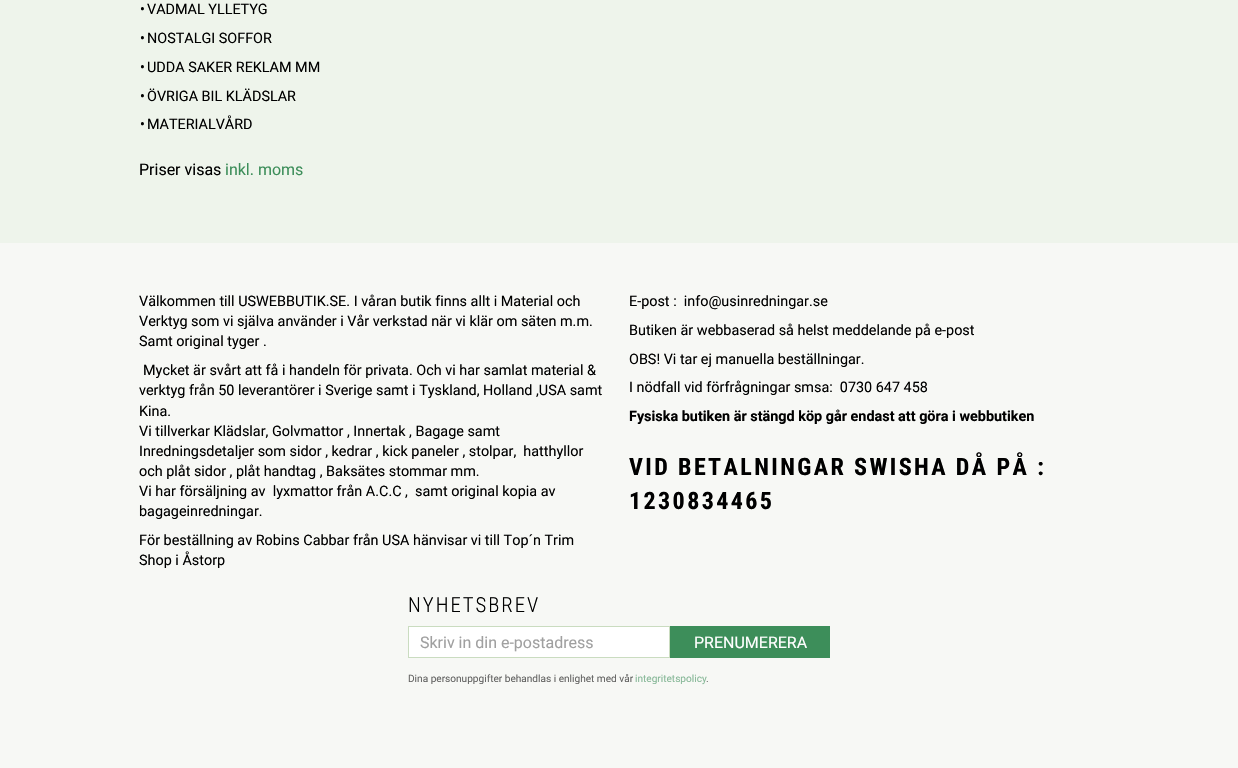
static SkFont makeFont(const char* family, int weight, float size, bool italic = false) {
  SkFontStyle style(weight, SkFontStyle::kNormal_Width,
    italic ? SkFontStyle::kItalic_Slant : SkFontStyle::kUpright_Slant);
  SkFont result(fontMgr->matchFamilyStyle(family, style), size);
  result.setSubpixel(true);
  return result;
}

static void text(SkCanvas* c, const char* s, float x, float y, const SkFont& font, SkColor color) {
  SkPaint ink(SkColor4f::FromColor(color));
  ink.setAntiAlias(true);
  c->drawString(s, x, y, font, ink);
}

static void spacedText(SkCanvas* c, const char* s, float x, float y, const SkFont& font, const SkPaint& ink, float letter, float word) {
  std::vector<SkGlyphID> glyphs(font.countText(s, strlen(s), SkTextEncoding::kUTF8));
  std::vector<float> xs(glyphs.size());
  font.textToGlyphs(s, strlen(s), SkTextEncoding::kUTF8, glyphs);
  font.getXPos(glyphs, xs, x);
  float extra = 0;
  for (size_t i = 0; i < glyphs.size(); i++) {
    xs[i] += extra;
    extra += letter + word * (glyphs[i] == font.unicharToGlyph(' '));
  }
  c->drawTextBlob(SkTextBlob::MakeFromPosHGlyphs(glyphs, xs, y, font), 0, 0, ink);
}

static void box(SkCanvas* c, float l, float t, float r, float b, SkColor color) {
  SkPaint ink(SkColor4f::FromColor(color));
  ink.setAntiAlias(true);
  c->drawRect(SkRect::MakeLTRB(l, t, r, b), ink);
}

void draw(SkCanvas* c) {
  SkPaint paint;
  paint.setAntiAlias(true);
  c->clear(0xffeef4eb);
  SkFont face1 = makeFont("Roboto", 400, 14.4f);
  text(c, "•", 140, 14, face1, 0xff000000);
  text(c, "VADMAL YLLETYG", 147, 14, face1, 0xff000000);
  text(c, "•", 140, 43, face1, 0xff000000);
  text(c, "NOSTALGI SOFFOR", 147, 43, face1, 0xff000000);
  text(c, "•", 140, 72, face1, 0xff000000);
  text(c, "UDDA SAKER REKLAM MM", 147, 72, face1, 0xff000000);
  text(c, "•", 140, 101, face1, 0xff000000);
  text(c, "ÖVRIGA BIL KLÄDSLAR", 147, 101, face1, 0xff000000);
  text(c, "•", 140, 129, face1, 0xff000000);
  text(c, "MATERIALVÅRD", 147, 129, face1, 0xff000000);
  SkFont face2 = makeFont("Roboto", 400, 16);
  text(c, "Priser visas", 139, 175, face2, 0xff000000);
  text(c, "inkl. moms", 225, 175, face2, 0xff3d8e5a);
  box(c, 0, 243, 1238, 768, 0xfff7f8f5);
  text(c, "Välkommen till USWEBBUTIK.SE. I våran butik finns allt i Material och", 139, 306, face1, 0xff000000);
  text(c, "Verktyg som vi själva använder i Vår verkstad när vi klär om säten m.m.", 139, 326, face1, 0xff000000);
  text(c, "Samt original tyger .", 139, 346, face1, 0xff000000);
  text(c, "Mycket är svårt att få i handeln för privata. Och vi har samlat material &", 143, 375, face1, 0xff000000);
  text(c, "verktyg från 50 leverantörer i Sverige samt i Tyskland, Holland ,USA samt", 139, 395, face1, 0xff000000);
  text(c, "Kina.", 139, 416, face1, 0xff000000);
  text(c, "Vi tillverkar Klädslar, Golvmattor , Innertak , Bagage samt", 139, 436, face1, 0xff000000);
  text(c, "Inredningsdetaljer som sidor , kedrar , kick paneler , stolpar,  hatthyllor", 139, 456, face1, 0xff000000);
  text(c, "och plåt sidor , plåt handtag , Baksätes stommar mm.", 139, 476, face1, 0xff000000);
  text(c, "Vi har försäljning av  lyxmattor från A.C.C ,  samt original kopia av", 139, 496, face1, 0xff000000);
  text(c, "bagageinredningar.", 139, 516, face1, 0xff000000);
  text(c, "För beställning av Robins Cabbar från USA hänvisar vi till Top´n Trim", 139, 545, face1, 0xff000000);
  text(c, "Shop i Åstorp", 139, 565, face1, 0xff000000);
  text(c, "E-post :  info@usinredningar.se", 629, 306, face1, 0xff000000);
  text(c, "Butiken är webbaserad så helst meddelande på e-post", 629, 335, face1, 0xff000000);
  text(c, "OBS! Vi tar ej manuella beställningar.", 629, 364, face1, 0xff000000);
  text(c, "I nödfall vid förfrågningar smsa:  0730 647 458", 629, 392, face1, 0xff000000);
  SkFont face3 = makeFont("Roboto", 700, 14.4f);
  text(c, "Fysiska butiken är stängd köp går endast att göra i webbutiken", 629, 421, face3, 0xff000000);
  SkFont face4 = makeFont("Roboto Condensed", 700, 24);
  paint.setColor(0xff000000);
  spacedText(c, "VID BETALNINGAR SWISHA DÅ PÅ :", 629, 475, face4, paint, 2.4f, 0);
  spacedText(c, "1230834465", 629, 509, face4, paint, 2.4f, 0);
  SkFont face5 = makeFont("Roboto Condensed", 300, 20.75f);
  spacedText(c, "NYHETSBREV", 408, 612, face5, paint, 2, 0);
  paint.setColor(0xffffffff);
  c->drawRect(SkRect::MakeLTRB(408.5f, 626.5f, 669.5f, 657.5f), paint);
  paint.setStyle(SkPaint::kStroke_Style);
  paint.setStrokeWidth(1);
  paint.setColor(0xffcadcc0);
  c->drawRect(SkRect::MakeLTRB(408.5f, 626.5f, 669.5f, 657.5f), paint);
  text(c, "Skriv in din e-postadress", 420, 648, face2, 0xffa0a0a0);
  box(c, 670, 626, 830, 658, 0xff3d8e5a);
  text(c, "PRENUMERERA", 694, 648, face2, 0xffffffff);
  SkFont face6 = makeFont("Roboto", 400, 10.1f);
  text(c, "Dina personuppgifter behandlas i enlighet med vår", 408, 682, face6, 0xff636362);
  text(c, "integritetspolicy", 635, 682, face6, 0xff87b898);
  text(c, ".", 706, 682, face6, 0xff636362);
}
